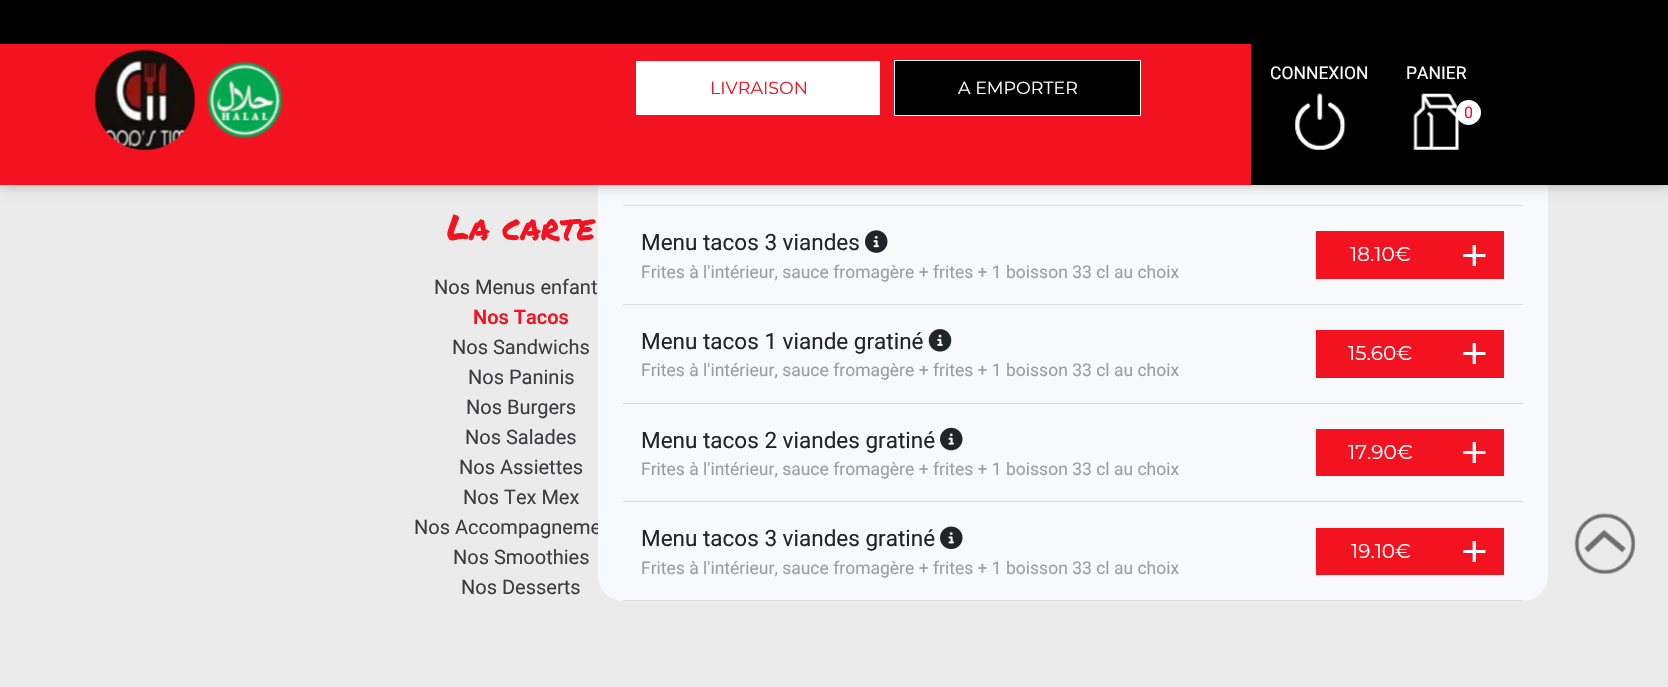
static SkFont makeFont(const char* family, int weight, float size, bool italic = false) {
  SkFontStyle style(weight, SkFontStyle::kNormal_Width,
    italic ? SkFontStyle::kItalic_Slant : SkFontStyle::kUpright_Slant);
  SkFont result(fontMgr->matchFamilyStyle(family, style), size);
  result.setSubpixel(true);
  return result;
}

static void text(SkCanvas* c, const char* s, float x, float y, const SkFont& font, SkColor color) {
  SkPaint ink(SkColor4f::FromColor(color));
  ink.setAntiAlias(true);
  c->drawString(s, x, y, font, ink);
}

static void box(SkCanvas* c, float l, float t, float r, float b, SkColor color) {
  SkPaint ink(SkColor4f::FromColor(color));
  ink.setAntiAlias(true);
  c->drawRect(SkRect::MakeLTRB(l, t, r, b), ink);
}

static void roundBox(SkCanvas* c, float l, float t, float r, float b, float radius, SkColor color) {
  SkPaint ink(SkColor4f::FromColor(color));
  ink.setAntiAlias(true);
  c->drawRoundRect(SkRect::MakeLTRB(l, t, r, b), radius, radius, ink);
}

static void picture(SkCanvas* c, const char* path, float l, float t, float r, float b) {
  auto image = SkImages::DeferredFromEncodedData(SkData::MakeFromFileName(path));
  c->drawImageRect(image, SkRect::MakeLTRB(l, t, r, b), SkSamplingOptions());
}

void draw(SkCanvas* c) {
  SkPaint paint;
  paint.setAntiAlias(true);
  c->clear(0xffebebeb);
  SkFont face1 = makeFont("Roboto", 400, 20);
  text(c, "Nos Accompagneme", 414, 534, face1, 0xff3d3c3f);
  roundBox(c, 598, -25, 1548, 601, 25, 0xfff8f9fa);
  box(c, 0, 0, 1668, 44, 0xff000000);
  paint.setColor(0x45000101);
  paint.setMaskFilter(SkMaskFilter::MakeBlur(kNormal_SkBlurStyle, 6));
  c->drawRect(SkRect::MakeLTRB(0, 44, 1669, 185), paint);
  paint.setMaskFilter(nullptr);
  box(c, 0, 44, 1251, 185, 0xfff31320);
  picture(c, "img_01.png", 94, 49, 196, 151);
  picture(c, "img_02.png", 207, 61, 283, 138);
  box(c, 636, 61, 880, 115, 0xffffffff);
  SkFont face2 = makeFont("Montserrat", 400, 17.5f);
  text(c, "LIVRAISON", 710, 94, face2, 0xfff31320);
  paint.setColor(0xff000000);
  c->drawRect(SkRect::MakeLTRB(894.5f, 60.5f, 1140.5f, 115.5f), paint);
  paint.setStyle(SkPaint::kStroke_Style);
  paint.setStrokeWidth(1);
  paint.setColor(0xffffffff);
  c->drawRect(SkRect::MakeLTRB(894.5f, 60.5f, 1140.5f, 115.5f), paint);
  text(c, "A EMPORTER", 958, 94, face2, 0xffffffff);
  box(c, 1251, 44, 1668, 185, 0xff000000);
  SkFont face3 = makeFont("Roboto", 400, 17.5f);
  text(c, "CONNEXION", 1270, 79, face3, 0xffffffff);
  picture(c, "img_03.png", 1295, 93, 1346, 150);
  text(c, "PANIER", 1406, 79, face3, 0xffffffff);
  picture(c, "img_04.png", 1413, 93, 1459, 150);
  paint.setStyle(SkPaint::kFill_Style);
  c->drawCircle(1468.5f, 112.5f, 12.5f, paint);
  SkFont face4 = makeFont("Roboto", 400, 16);
  text(c, "0", 1464, 118, face4, 0xffff002a);
  SkFont face5 = makeFont("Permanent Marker", 400, 35);
  text(c, "La carte", 447, 240, face5, 0xfff31320);
  text(c, "Nos Menus enfant", 434, 294, face1, 0xff3d3c3f);
  SkFont face6 = makeFont("Roboto", 600, 20);
  text(c, "Nos Tacos", 473, 324, face6, 0xfff31320);
  text(c, "Nos Sandwichs", 452, 354, face1, 0xff3d3c3f);
  text(c, "Nos Paninis", 468, 384, face1, 0xff3d3c3f);
  text(c, "Nos Burgers", 466, 414, face1, 0xff3d3c3f);
  text(c, "Nos Salades", 465, 444, face1, 0xff3d3c3f);
  text(c, "Nos Assiettes", 459, 474, face1, 0xff3d3c3f);
  text(c, "Nos Tex Mex", 463, 504, face1, 0xff3d3c3f);
  text(c, "Nos Smoothies", 453, 564, face1, 0xff3d3c3f);
  text(c, "Nos Desserts", 461, 594, face1, 0xff3d3c3f);
  box(c, 623, 205, 1523, 206, 0xffdddddd);
  box(c, 623, 304, 1523, 305, 0xffdddddd);
  SkFont face7 = makeFont("Roboto", 400, 22.5f);
  text(c, "Menu tacos 3 viandes", 641, 250, face7, 0xff212529);
  picture(c, "img_05.png", 865, 230, 888, 253);
  text(c, "Frites à l'intérieur, sauce fromagère + frites + 1 boisson 33 cl au choix", 641, 278, face3, 0xff9d9d9f);
  box(c, 1316, 231, 1504, 279, 0xfff31320);
  SkFont face8 = makeFont("Montserrat", 400, 20);
  text(c, "18.10€", 1350, 261, face8, 0xffffffff);
  SkFont face9 = makeFont("Montserrat", 400, 50);
  text(c, "+", 1460, 273, face9, 0xffffffff);
  box(c, 623, 403, 1523, 404, 0xffdddddd);
  text(c, "Menu tacos 1 viande gratiné", 641, 349, face7, 0xff212529);
  picture(c, "img_06.png", 928, 329, 952, 352);
  text(c, "Frites à l'intérieur, sauce fromagère + frites + 1 boisson 33 cl au choix", 641, 376, face3, 0xff9d9d9f);
  box(c, 1316, 330, 1504, 378, 0xfff31320);
  text(c, "15.60€", 1348, 360, face8, 0xffffffff);
  text(c, "+", 1460, 371, face9, 0xffffffff);
  box(c, 623, 501, 1523, 502, 0xffdddddd);
  text(c, "Menu tacos 2 viandes gratiné", 641, 448, face7, 0xff212529);
  picture(c, "img_07.png", 940, 427, 963, 451);
  text(c, "Frites à l'intérieur, sauce fromagère + frites + 1 boisson 33 cl au choix", 641, 475, face3, 0xff9d9d9f);
  box(c, 1316, 429, 1504, 476, 0xfff31320);
  text(c, "17.90€", 1348, 459, face8, 0xffffffff);
  text(c, "+", 1460, 470, face9, 0xffffffff);
  box(c, 623, 600, 1523, 601, 0xffdddddd);
  text(c, "Menu tacos 3 viandes gratiné", 641, 546, face7, 0xff212529);
  picture(c, "img_08.png", 940, 526, 963, 550);
  text(c, "Frites à l'intérieur, sauce fromagère + frites + 1 boisson 33 cl au choix", 641, 574, face3, 0xff9d9d9f);
  box(c, 1316, 528, 1504, 575, 0xfff31320);
  text(c, "19.10€", 1351, 558, face8, 0xffffffff);
  text(c, "+", 1460, 569, face9, 0xffffffff);
  picture(c, "img_09.png", 1574, 513, 1636, 574);
}
